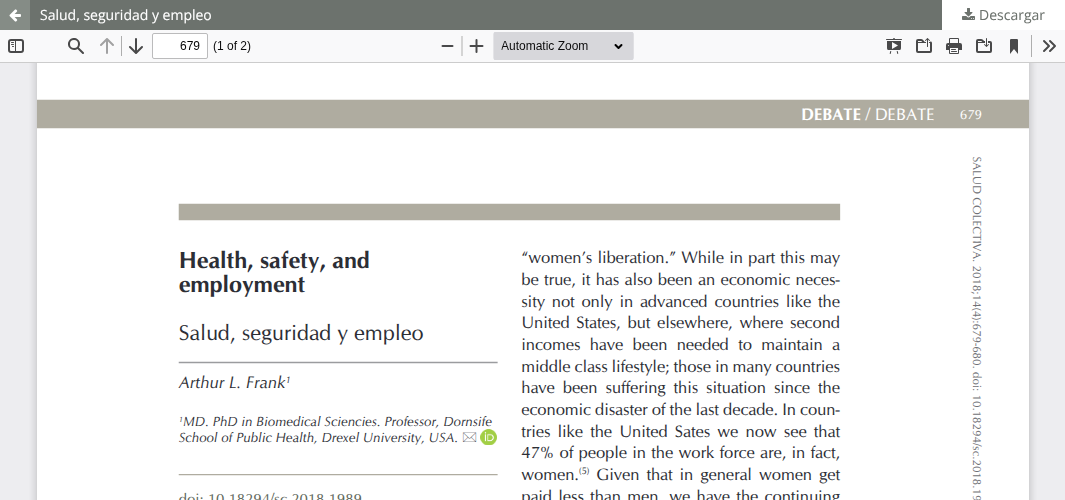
static SkFont makeFont(const char* family, int weight, float size, bool italic = false) {
  SkFontStyle style(weight, SkFontStyle::kNormal_Width,
    italic ? SkFontStyle::kItalic_Slant : SkFontStyle::kUpright_Slant);
  SkFont result(fontMgr->matchFamilyStyle(family, style), size);
  result.setSubpixel(true);
  return result;
}

static void text(SkCanvas* c, const char* s, float x, float y, const SkFont& font, SkColor color) {
  SkPaint ink(SkColor4f::FromColor(color));
  ink.setAntiAlias(true);
  c->drawString(s, x, y, font, ink);
}

static void box(SkCanvas* c, float l, float t, float r, float b, SkColor color) {
  SkPaint ink(SkColor4f::FromColor(color));
  ink.setAntiAlias(true);
  c->drawRect(SkRect::MakeLTRB(l, t, r, b), ink);
}

static void picture(SkCanvas* c, const char* path, float l, float t, float r, float b) {
  auto image = SkImages::DeferredFromEncodedData(SkData::MakeFromFileName(path));
  c->drawImageRect(image, SkRect::MakeLTRB(l, t, r, b), SkSamplingOptions());
}

void draw(SkCanvas* c) {
  SkPaint paint;
  paint.setAntiAlias(true);
  c->clear(0xffffffff);
  box(c, 30, 0, 942, 30, 0xff6c726d);
  box(c, 0, 0, 30, 30, 0xff858c86);
  picture(c, "img_01.png", 9, 9, 21, 22);
  SkFont face1 = makeFont("Open Sans", 400, 14);
  text(c, "Salud, seguridad y empleo", 40, 20, face1, 0xffffffff);
  picture(c, "img_02.png", 962, 8, 975, 20);
  text(c, "Descargar", 979, 20, face1, 0xff6c726d);
  picture(c, "img_03.png", 0, 30, 1065, 500);
}
